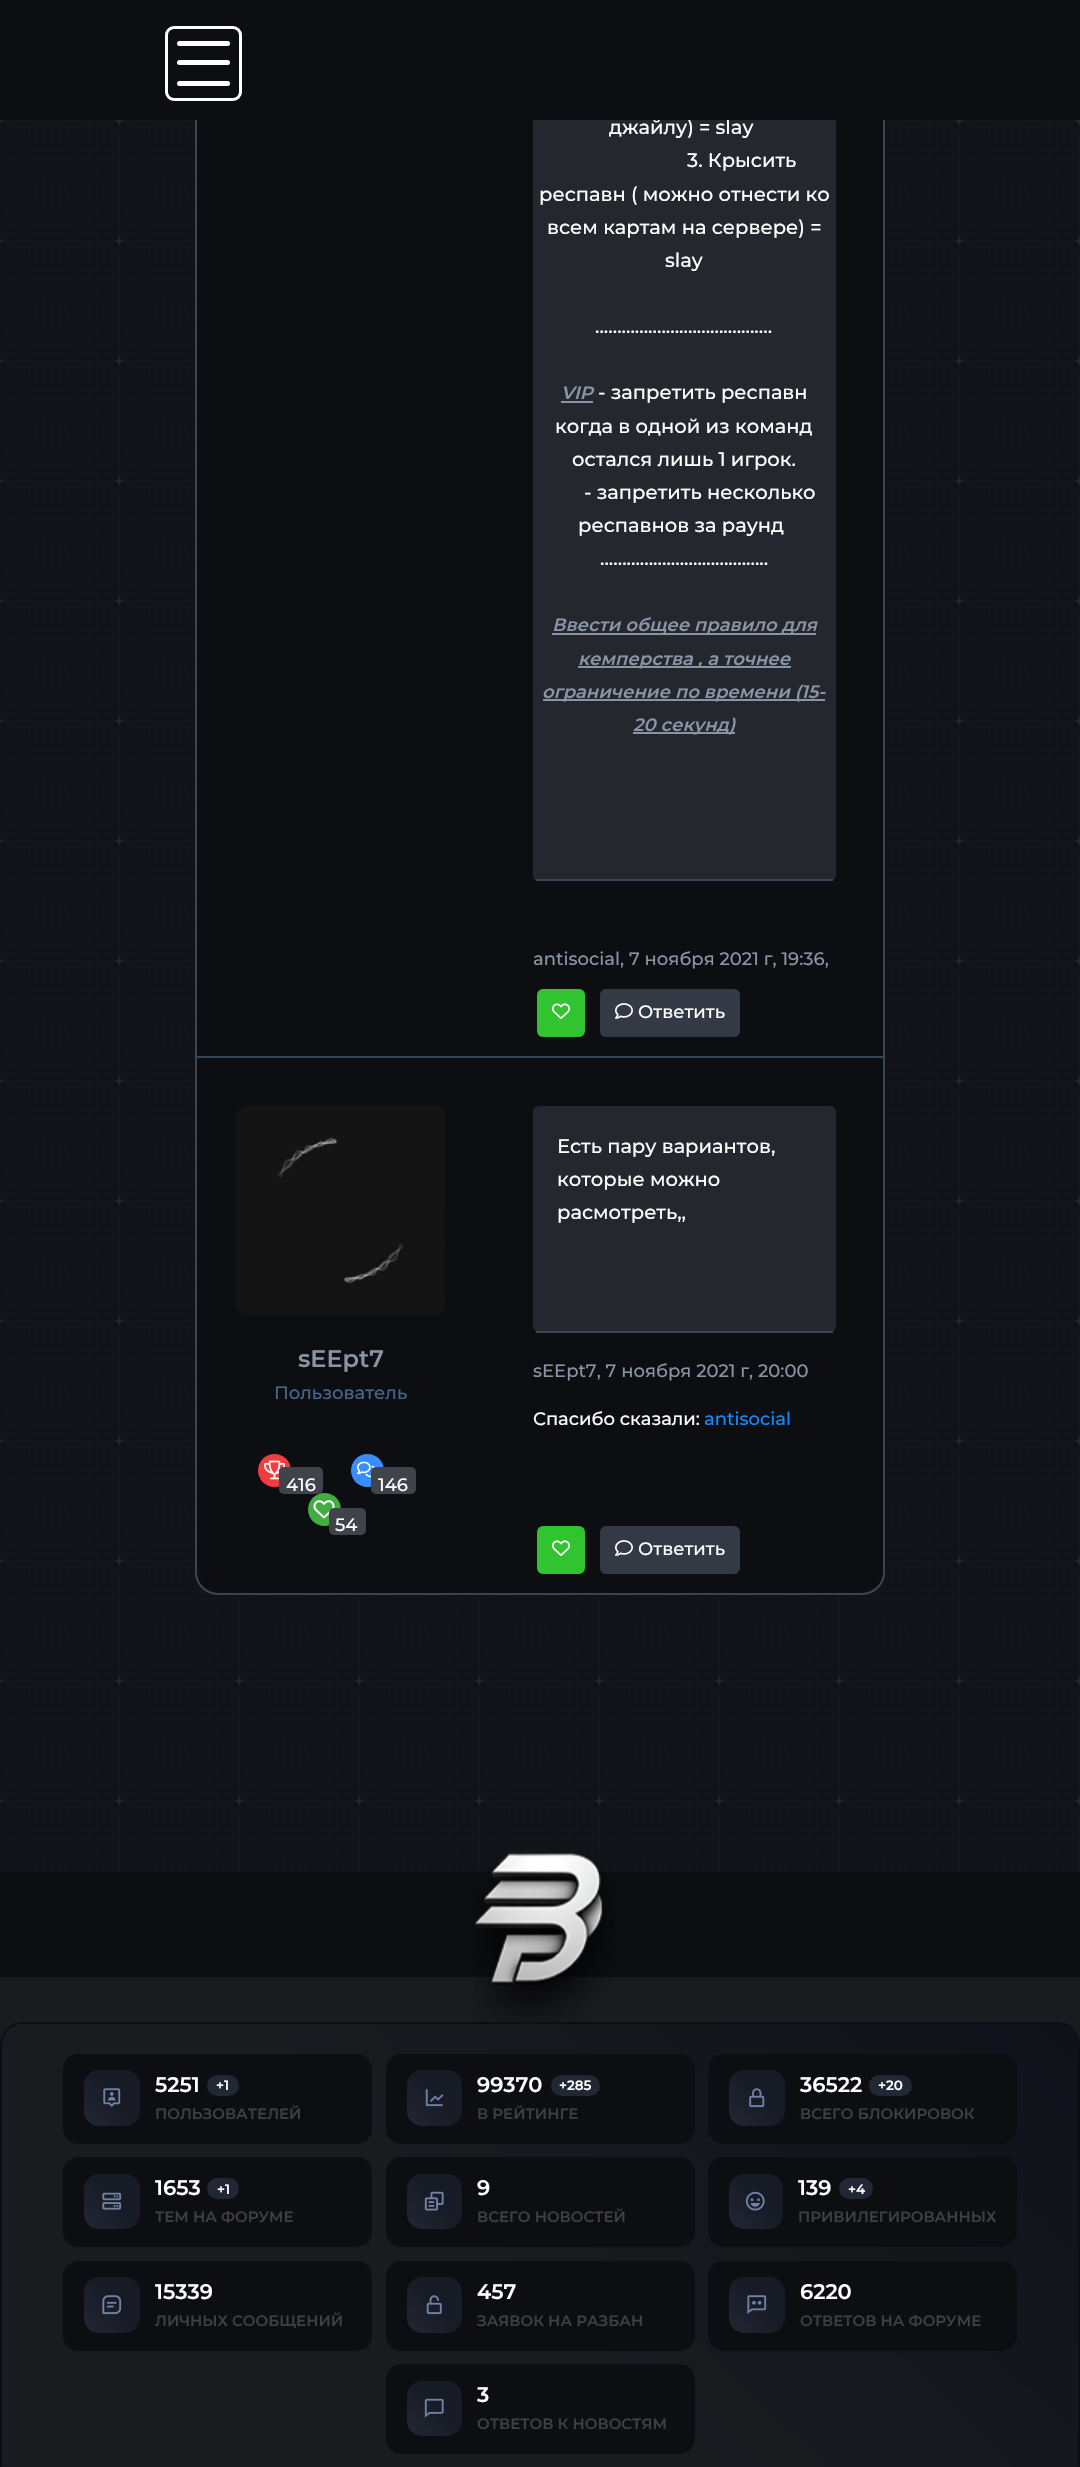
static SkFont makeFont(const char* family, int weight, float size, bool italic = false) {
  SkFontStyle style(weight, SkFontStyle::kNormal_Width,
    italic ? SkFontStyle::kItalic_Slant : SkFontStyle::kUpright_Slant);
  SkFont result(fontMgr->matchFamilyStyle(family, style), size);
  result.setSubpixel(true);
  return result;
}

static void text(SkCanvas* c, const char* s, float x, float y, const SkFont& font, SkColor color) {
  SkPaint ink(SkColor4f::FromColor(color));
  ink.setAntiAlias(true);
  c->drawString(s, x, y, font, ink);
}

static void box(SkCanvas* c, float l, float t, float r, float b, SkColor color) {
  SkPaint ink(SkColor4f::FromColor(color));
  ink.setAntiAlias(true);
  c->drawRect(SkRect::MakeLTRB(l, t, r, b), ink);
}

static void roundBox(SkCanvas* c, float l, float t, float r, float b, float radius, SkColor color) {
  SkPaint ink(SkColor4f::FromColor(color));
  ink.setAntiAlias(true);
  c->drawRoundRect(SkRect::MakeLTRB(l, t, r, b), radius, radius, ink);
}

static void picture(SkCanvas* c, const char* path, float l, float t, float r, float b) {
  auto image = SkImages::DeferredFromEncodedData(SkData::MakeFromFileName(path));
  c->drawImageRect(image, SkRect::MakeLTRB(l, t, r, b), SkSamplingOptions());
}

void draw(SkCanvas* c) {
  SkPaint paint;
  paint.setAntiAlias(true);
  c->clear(0xffffffff);
  picture(c, "img_01.png", 0, 120, 1080, 1872);
  paint.setColor(0xff0d0e12);
  c->drawRoundRect(SkRect::MakeLTRB(196, -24, 884, 1594), 22, 22, paint);
  paint.setStyle(SkPaint::kStroke_Style);
  paint.setStrokeWidth(2);
  paint.setColor(0xff374558);
  c->drawRoundRect(SkRect::MakeLTRB(196, -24, 884, 1594), 22, 22, paint);
  roundBox(c, 533, -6, 836, 881, 6, 0xff24282e);
  SkFont face1 = makeFont("Montserrat", 500, 19.5f);
  text(c, "джайлу) = slay", 609, 134, face1, 0xffffffff);
  box(c, 0, 0, 1080, 120, 0xff0d0e12);
  paint.setStrokeWidth(3);
  paint.setColor(0xffffffff);
  c->drawRoundRect(SkRect::MakeLTRB(166.5f, 27.5f, 240.5f, 99.5f), 7.5f, 7.5f, paint);
  roundBox(c, 177, 41, 230, 46, 2.5f, 0xffffffff);
  roundBox(c, 177, 60, 230, 65, 2.5f, 0xffffffff);
  roundBox(c, 177, 81, 230, 86, 2.5f, 0xffffffff);
  box(c, 536, 879, 833, 881, 0xff374558);
  text(c, "3. Крысить", 687, 167, face1, 0xffffffff);
  text(c, "респавн ( можно отнести ко", 539, 201, face1, 0xffffffff);
  text(c, "всем картам на сервере) =", 547, 234, face1, 0xffffffff);
  text(c, "slay", 665, 267, face1, 0xffffffff);
  text(c, "........................................", 595, 333, face1, 0xffffffff);
  SkFont face2 = makeFont("Montserrat", 600, 18, true);
  text(c, "VIP", 561, 399, face2, 0xff8a94a6);
  box(c, 561, 401, 593, 403, 0xff8a94a6);
  text(c, "- запретить респавн", 598, 399, face1, 0xffffffff);
  text(c, "когда в одной из команд", 555, 433, face1, 0xffffffff);
  text(c, "остался лишь 1 игрок.", 572, 466, face1, 0xffffffff);
  text(c, "- запретить несколько", 584, 499, face1, 0xffffffff);
  text(c, "респавнов за раунд", 578, 532, face1, 0xffffffff);
  text(c, "......................................", 600, 565, face1, 0xffffffff);
  box(c, 552, 633, 816, 635, 0xff8a94a6);
  text(c, "Ввести общее правило для", 552, 631, face2, 0xff8a94a6);
  box(c, 578, 666, 791, 668, 0xff8a94a6);
  text(c, "кемперства , а точнее", 578, 665, face2, 0xff8a94a6);
  box(c, 543, 699, 825, 701, 0xff8a94a6);
  text(c, "ограничение по времени (15-", 542, 698, face2, 0xff8a94a6);
  box(c, 633, 732, 735, 734, 0xff8a94a6);
  text(c, "20 секунд)", 633, 731, face2, 0xff8a94a6);
  SkFont face3 = makeFont("Montserrat", 500, 18);
  text(c, "antisocial, 7 ноября 2021 г, 19:36,", 533, 965, face3, 0xff8a94a6);
  roundBox(c, 537, 989, 585, 1037, 6, 0xbf3dff3a);
  picture(c, "img_02.png", 552, 1003, 570, 1019);
  roundBox(c, 600, 989, 740, 1037, 6, 0xff343a45);
  picture(c, "img_03.png", 615, 1003, 633, 1019);
  text(c, "Ответить", 638, 1018, face3, 0xffffffff);
  box(c, 197, 1056, 884, 1058, 0xff374558);
  picture(c, "img_04.png", 236, 1106, 445, 1315);
  SkFont face4 = makeFont("Montserrat", 600, 24);
  text(c, "sEEpt7", 298, 1367, face4, 0xff8a94a6);
  text(c, "Пользователь", 274, 1399, face3, 0xff45688e);
  paint.setStyle(SkPaint::kFill_Style);
  paint.setColor(0xfff03d3d);
  c->drawCircle(274.5f, 1470.5f, 16.5f, paint);
  picture(c, "img_05.png", 264, 1460, 285, 1480);
  paint.setColor(0xff42ad40);
  c->drawCircle(324.5f, 1509.5f, 16.5f, paint);
  roundBox(c, 279, 1467, 323, 1494, 5, 0xff41434a);
  text(c, "416", 286, 1491, face3, 0xffffffff);
  paint.setColor(0xff3a8dff);
  c->drawCircle(367.5f, 1470.5f, 16.5f, paint);
  picture(c, "img_06.png", 357, 1461, 376, 1478);
  roundBox(c, 371, 1467, 416, 1494, 5, 0xff41434a);
  text(c, "146", 378, 1491, face3, 0xffffffff);
  picture(c, "img_07.png", 313, 1500, 335, 1519);
  roundBox(c, 329, 1508, 366, 1535, 5, 0xff41434a);
  text(c, "54", 335, 1531, face3, 0xffffffff);
  roundBox(c, 533, 1106, 836, 1332, 6, 0xff24282e);
  box(c, 536, 1331, 833, 1333, 0xff374558);
  text(c, "Есть пару вариантов,", 557, 1153, face1, 0xffffffff);
  text(c, "которые можно", 557, 1186, face1, 0xffffffff);
  text(c, "расмотреть,,", 557, 1219, face1, 0xffffffff);
  text(c, "sEEpt7, 7 ноября 2021 г, 20:00", 533, 1377, face3, 0xff8a94a6);
  text(c, "Спасибо сказали:", 533, 1425, face3, 0xffffffff);
  text(c, "antisocial", 704, 1425, face3, 0xff0f8bff);
  roundBox(c, 537, 1526, 585, 1574, 6, 0xbf3dff3a);
  picture(c, "img_02.png", 552, 1540, 570, 1556);
  roundBox(c, 600, 1526, 740, 1574, 6, 0xff343a45);
  picture(c, "img_03.png", 615, 1540, 633, 1556);
  text(c, "Ответить", 638, 1555, face3, 0xffffffff);
  box(c, 0, 1977, 1080, 2467, 0xff1a1b1f);
  box(c, 0, 1872, 1080, 1977, 0xff0d0e12);
  picture(c, "img_08.png", 473, 1853, 615, 2022);
  c->save();
  c->clipPath(SkPathBuilder().moveTo(23, 2022).lineTo(1057, 2022).cubicTo(1069.5f, 2022, 1080, 2032.5f, 1080, 2045).lineTo(1080, 2463).cubicTo(1080, 2475.5f, 1069.5f, 2486, 1057, 2486).lineTo(23, 2486).cubicTo(10.5f, 2486, 0, 2475.5f, 0, 2463).lineTo(0, 2045).cubicTo(0, 2032.5f, 10.5f, 2022, 23, 2022).close().detach(), true);
  {
    const SkColor colors[] = {0xff0f121a, 0xff1a1b1f};
    const float stops[] = {0, 0.55f};
    const SkPoint ends[] = {{915, 1866}, {165, 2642}};
    paint.setShader(SkGradientShader::MakeLinear(ends, colors, stops, 2, SkTileMode::kClamp));
    paint.setAlpha(255);
  }
  c->drawRect(SkRect::MakeLTRB(2, 2024, 1079, 2467), paint);
  c->restore();
  paint.setStyle(SkPaint::kStroke_Style);
  paint.setStrokeWidth(2);
  paint.setShader(nullptr);
  paint.setColor(0xff0b0e15);
  c->drawRoundRect(SkRect::MakeLTRB(1, 2023, 1079, 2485), 22, 22, paint);
  roundBox(c, 63, 2054, 372, 2144, 15, 0xff0d0e12);
  paint.setStyle(SkPaint::kFill_Style);
  {
    const SkColor colors[] = {0xff222734, 0xff161b25};
    const float stops[] = {0, 0.55f};
    const SkPoint ends[] = {{83, 2124}, {141, 2072}};
    paint.setShader(SkGradientShader::MakeLinear(ends, colors, stops, 2, SkTileMode::kClamp));
    paint.setAlpha(255);
  }
  c->drawRoundRect(SkRect::MakeLTRB(84, 2070, 140, 2126), 15, 15, paint);
  picture(c, "img_09.png", 103, 2088, 121, 2107);
  SkFont face5 = makeFont("Montserrat", 600, 21);
  text(c, "5251", 155, 2092, face5, 0xffffffff);
  roundBox(c, 207, 2075, 239, 2096, 10.5f, 0xff222734);
  SkFont face6 = makeFont("Montserrat", 600, 13.5f);
  text(c, "+1", 216, 2090, face6, 0xffffffff);
  SkFont face7 = makeFont("Montserrat", 600, 15);
  text(c, "ПОЛЬЗОВАТЕЛЕЙ", 155, 2119, face7, 0xff3e3f42);
  roundBox(c, 386, 2054, 695, 2144, 15, 0xff0d0e12);
  {
    const SkColor colors[] = {0xff222734, 0xff161b25};
    const float stops[] = {0, 0.55f};
    const SkPoint ends[] = {{405, 2124}, {463, 2072}};
    paint.setShader(SkGradientShader::MakeLinear(ends, colors, stops, 2, SkTileMode::kClamp));
    paint.setAlpha(255);
  }
  c->drawRoundRect(SkRect::MakeLTRB(407, 2070, 462, 2126), 15, 15, paint);
  picture(c, "img_10.png", 425, 2089, 444, 2107);
  text(c, "99370", 477, 2092, face5, 0xffffffff);
  roundBox(c, 551, 2075, 600, 2096, 10.5f, 0xff222734);
  text(c, "+285", 559, 2090, face6, 0xffffffff);
  text(c, "В РЕЙТИНГЕ", 477, 2119, face7, 0xff3e3f42);
  roundBox(c, 708, 2054, 1017, 2144, 15, 0xff0d0e12);
  {
    const SkColor colors[] = {0xff222734, 0xff161b25};
    const float stops[] = {0, 0.55f};
    const SkPoint ends[] = {{728, 2124}, {786, 2072}};
    paint.setShader(SkGradientShader::MakeLinear(ends, colors, stops, 2, SkTileMode::kClamp));
    paint.setAlpha(255);
  }
  c->drawRoundRect(SkRect::MakeLTRB(729, 2070, 785, 2126), 15, 15, paint);
  picture(c, "img_11.png", 749, 2088, 765, 2108);
  text(c, "36522", 800, 2092, face5, 0xffffffff);
  roundBox(c, 869, 2075, 912, 2096, 10.5f, 0xff222734);
  text(c, "+20", 878, 2090, face6, 0xffffffff);
  text(c, "ВСЕГО БЛОКИРОВОК", 800, 2119, face7, 0xff3e3f42);
  roundBox(c, 63, 2157, 372, 2247, 15, 0xff0d0e12);
  {
    const SkColor colors[] = {0xff222734, 0xff161b25};
    const float stops[] = {0, 0.55f};
    const SkPoint ends[] = {{83, 2227}, {141, 2175}};
    paint.setShader(SkGradientShader::MakeLinear(ends, colors, stops, 2, SkTileMode::kClamp));
    paint.setAlpha(255);
  }
  c->drawRoundRect(SkRect::MakeLTRB(84, 2174, 140, 2229), 15, 15, paint);
  picture(c, "img_12.png", 102, 2192, 122, 2210);
  text(c, "1653", 155, 2195, face5, 0xffffffff);
  roundBox(c, 207, 2178, 239, 2199, 10.5f, 0xff222734);
  text(c, "+1", 217, 2194, face6, 0xffffffff);
  text(c, "ТЕМ НА ФОРУМЕ", 155, 2222, face7, 0xff3e3f42);
  roundBox(c, 386, 2157, 695, 2247, 15, 0xff0d0e12);
  {
    const SkColor colors[] = {0xff222734, 0xff161b25};
    const float stops[] = {0, 0.55f};
    const SkPoint ends[] = {{405, 2227}, {463, 2175}};
    paint.setShader(SkGradientShader::MakeLinear(ends, colors, stops, 2, SkTileMode::kClamp));
    paint.setAlpha(255);
  }
  c->drawRoundRect(SkRect::MakeLTRB(407, 2174, 462, 2229), 15, 15, paint);
  picture(c, "img_13.png", 424, 2191, 444, 2211);
  text(c, "9", 477, 2195, face5, 0xffffffff);
  text(c, "ВСЕГО НОВОСТЕЙ", 477, 2222, face7, 0xff3e3f42);
  roundBox(c, 708, 2157, 1017, 2247, 15, 0xff0d0e12);
  {
    const SkColor colors[] = {0xff222734, 0xff161b25};
    const float stops[] = {0, 0.55f};
    const SkPoint ends[] = {{727, 2227}, {785, 2175}};
    paint.setShader(SkGradientShader::MakeLinear(ends, colors, stops, 2, SkTileMode::kClamp));
    paint.setAlpha(255);
  }
  c->drawRoundRect(SkRect::MakeLTRB(729, 2174, 783, 2229), 15, 15, paint);
  picture(c, "img_14.png", 745, 2191, 765, 2211);
  text(c, "139", 798, 2195, face5, 0xffffffff);
  roundBox(c, 839, 2178, 873, 2199, 10.5f, 0xff222734);
  text(c, "+4", 848, 2194, face6, 0xffffffff);
  text(c, "ПРИВИЛЕГИРОВАННЫХ", 798, 2222, face7, 0xff3e3f42);
  roundBox(c, 63, 2261, 372, 2351, 15, 0xff0d0e12);
  {
    const SkColor colors[] = {0xff222734, 0xff161b25};
    const float stops[] = {0, 0.55f};
    const SkPoint ends[] = {{83, 2331}, {141, 2279}};
    paint.setShader(SkGradientShader::MakeLinear(ends, colors, stops, 2, SkTileMode::kClamp));
    paint.setAlpha(255);
  }
  c->drawRoundRect(SkRect::MakeLTRB(84, 2277, 140, 2333), 15, 15, paint);
  picture(c, "img_15.png", 102, 2295, 122, 2315);
  text(c, "15339", 155, 2299, face5, 0xffffffff);
  text(c, "ЛИЧНЫХ СООБЩЕНИЙ", 155, 2326, face7, 0xff3e3f42);
  roundBox(c, 386, 2261, 695, 2351, 15, 0xff0d0e12);
  {
    const SkColor colors[] = {0xff222734, 0xff161b25};
    const float stops[] = {0, 0.55f};
    const SkPoint ends[] = {{405, 2331}, {463, 2279}};
    paint.setShader(SkGradientShader::MakeLinear(ends, colors, stops, 2, SkTileMode::kClamp));
    paint.setAlpha(255);
  }
  c->drawRoundRect(SkRect::MakeLTRB(407, 2277, 462, 2333), 15, 15, paint);
  picture(c, "img_16.png", 426, 2295, 442, 2315);
  text(c, "457", 477, 2299, face5, 0xffffffff);
  text(c, "ЗАЯВОК НА РАЗБАН", 477, 2326, face7, 0xff3e3f42);
  roundBox(c, 708, 2261, 1017, 2351, 15, 0xff0d0e12);
  {
    const SkColor colors[] = {0xff222734, 0xff161b25};
    const float stops[] = {0, 0.55f};
    const SkPoint ends[] = {{728, 2331}, {786, 2279}};
    paint.setShader(SkGradientShader::MakeLinear(ends, colors, stops, 2, SkTileMode::kClamp));
    paint.setAlpha(255);
  }
  c->drawRoundRect(SkRect::MakeLTRB(729, 2277, 785, 2333), 15, 15, paint);
  picture(c, "img_17.png", 747, 2295, 767, 2314);
  text(c, "6220", 800, 2299, face5, 0xffffffff);
  text(c, "ОТВЕТОВ НА ФОРУМЕ", 800, 2326, face7, 0xff3e3f42);
  roundBox(c, 386, 2364, 695, 2454, 15, 0xff0d0e12);
  {
    const SkColor colors[] = {0xff222734, 0xff161b25};
    const float stops[] = {0, 0.55f};
    const SkPoint ends[] = {{405, 2434}, {463, 2382}};
    paint.setShader(SkGradientShader::MakeLinear(ends, colors, stops, 2, SkTileMode::kClamp));
    paint.setAlpha(255);
  }
  c->drawRoundRect(SkRect::MakeLTRB(407, 2381, 462, 2436), 15, 15, paint);
  picture(c, "img_18.png", 424, 2398, 444, 2418);
  text(c, "3", 477, 2402, face5, 0xffffffff);
  text(c, "ОТВЕТОВ К НОВОСТЯМ", 477, 2429, face7, 0xff3e3f42);
}
